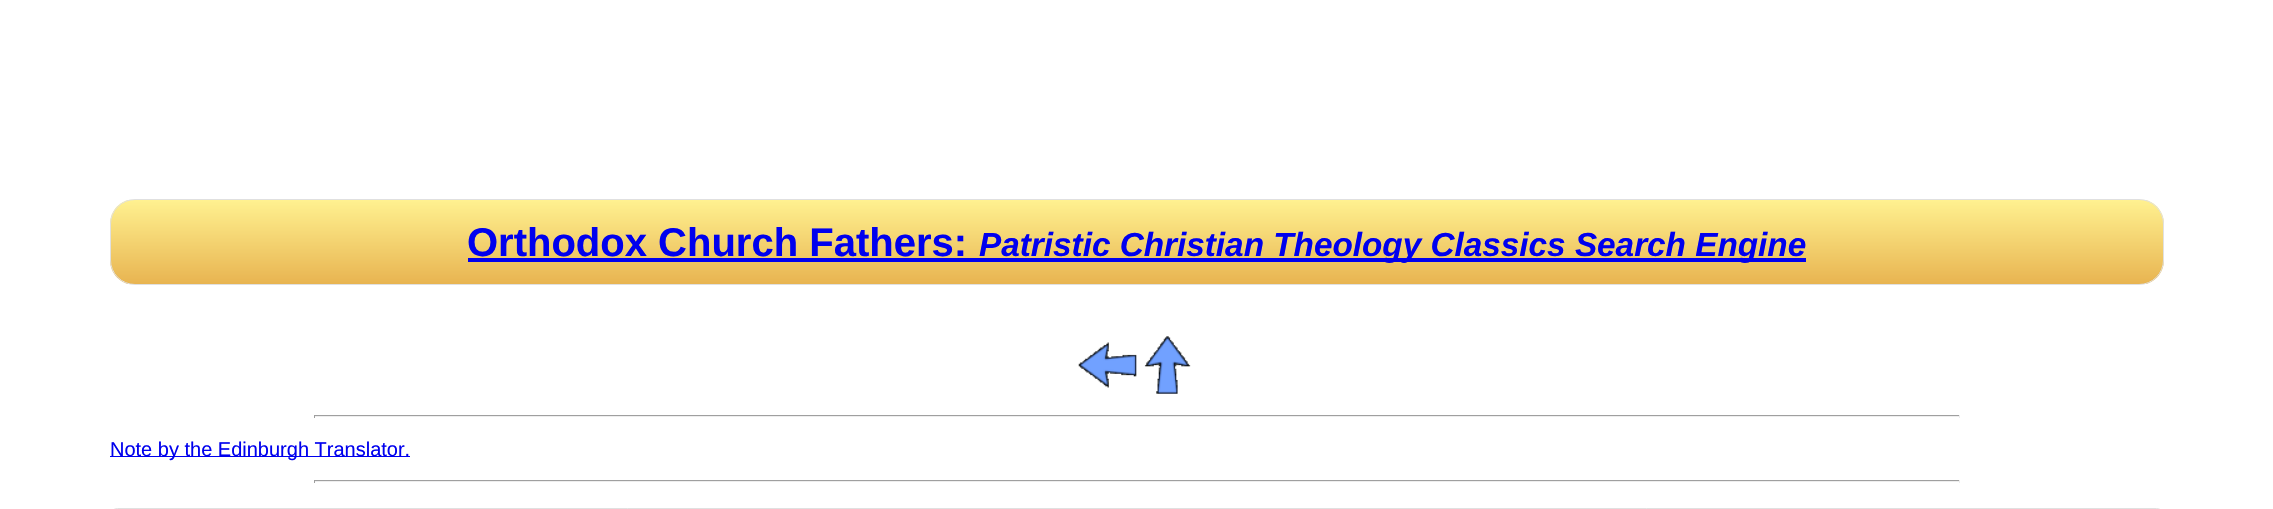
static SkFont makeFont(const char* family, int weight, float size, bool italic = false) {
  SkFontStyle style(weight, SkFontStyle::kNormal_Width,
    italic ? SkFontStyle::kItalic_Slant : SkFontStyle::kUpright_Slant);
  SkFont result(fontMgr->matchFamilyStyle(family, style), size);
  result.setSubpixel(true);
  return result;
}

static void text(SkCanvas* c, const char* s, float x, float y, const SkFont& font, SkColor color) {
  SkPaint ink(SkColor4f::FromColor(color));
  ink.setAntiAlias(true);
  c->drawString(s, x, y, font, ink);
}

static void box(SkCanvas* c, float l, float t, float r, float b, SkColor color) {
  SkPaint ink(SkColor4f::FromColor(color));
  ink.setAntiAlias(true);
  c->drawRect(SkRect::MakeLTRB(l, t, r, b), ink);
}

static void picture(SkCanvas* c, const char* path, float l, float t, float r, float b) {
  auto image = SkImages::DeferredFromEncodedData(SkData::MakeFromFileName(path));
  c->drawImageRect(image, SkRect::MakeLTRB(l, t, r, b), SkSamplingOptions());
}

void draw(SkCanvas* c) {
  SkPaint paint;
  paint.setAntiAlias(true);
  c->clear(0xffffffff);
  c->save();
  c->clipPath(SkPathBuilder().moveTo(135, 199).lineTo(2139, 199).cubicTo(2153, 199, 2164, 210, 2164, 224).lineTo(2164, 260).cubicTo(2164, 274, 2153, 285, 2139, 285).lineTo(135, 285).cubicTo(121, 285, 110, 274, 110, 260).lineTo(110, 224).cubicTo(110, 210, 121, 199, 135, 199).close().detach(), true);
  {
    const SkColor colors[] = {0xfffff190, 0xffe8b451};
    const float stops[] = {0, 1};
    const SkPoint ends[] = {{1137, 200}, {1137, 284}};
    paint.setShader(SkGradientShader::MakeLinear(ends, colors, stops, 2, SkTileMode::kClamp));
    paint.setAlpha(255);
  }
  c->drawRect(SkRect::MakeLTRB(110, 200, 2164, 284), paint);
  c->restore();
  paint.setStyle(SkPaint::kStroke_Style);
  paint.setStrokeWidth(1);
  paint.setShader(nullptr);
  paint.setColor(0xffe0e0e0);
  c->drawRoundRect(SkRect::MakeLTRB(110.5f, 199.5f, 2163.5f, 284.5f), 24.5f, 24.5f, paint);
  SkFont face1 = makeFont("Liberation Sans", 700, 40);
  text(c, "Orthodox Church Fathers:", 467, 256, face1, 0xff0000ee);
  box(c, 468, 258, 1806, 262, 0xff0000ee);
  SkFont face2 = makeFont("Liberation Sans", 700, 33.3f, true);
  text(c, "Patristic Christian Theology Classics Search Engine", 979, 256, face2, 0xff0000ee);
  picture(c, "img_01.png", 1078, 342, 1137, 388);
  picture(c, "img_02.png", 1144, 336, 1191, 394);
  box(c, 314, 415, 1960, 416, 0xff9f9f9f);
  box(c, 1959, 415, 1960, 418, 0xffeeeeee);
  box(c, 314, 416, 1960, 417, 0xffeeeeee);
  box(c, 314, 415, 315, 418, 0xff9f9f9f);
  box(c, 110, 456, 410, 457, 0xff0000ee);
  SkFont face3 = makeFont("Liberation Sans", 400, 20);
  text(c, "Note by the Edinburgh Translator.", 110, 456, face3, 0xff0000ee);
  box(c, 314, 480, 1960, 481, 0xff9f9f9f);
  box(c, 1959, 480, 1960, 483, 0xffeeeeee);
  box(c, 314, 481, 1960, 482, 0xffeeeeee);
  box(c, 314, 480, 315, 483, 0xff9f9f9f);
  c->drawRoundRect(SkRect::MakeLTRB(110.5f, 508.5f, 2163.5f, 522.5f), 12.5f, 12.5f, paint);
}
